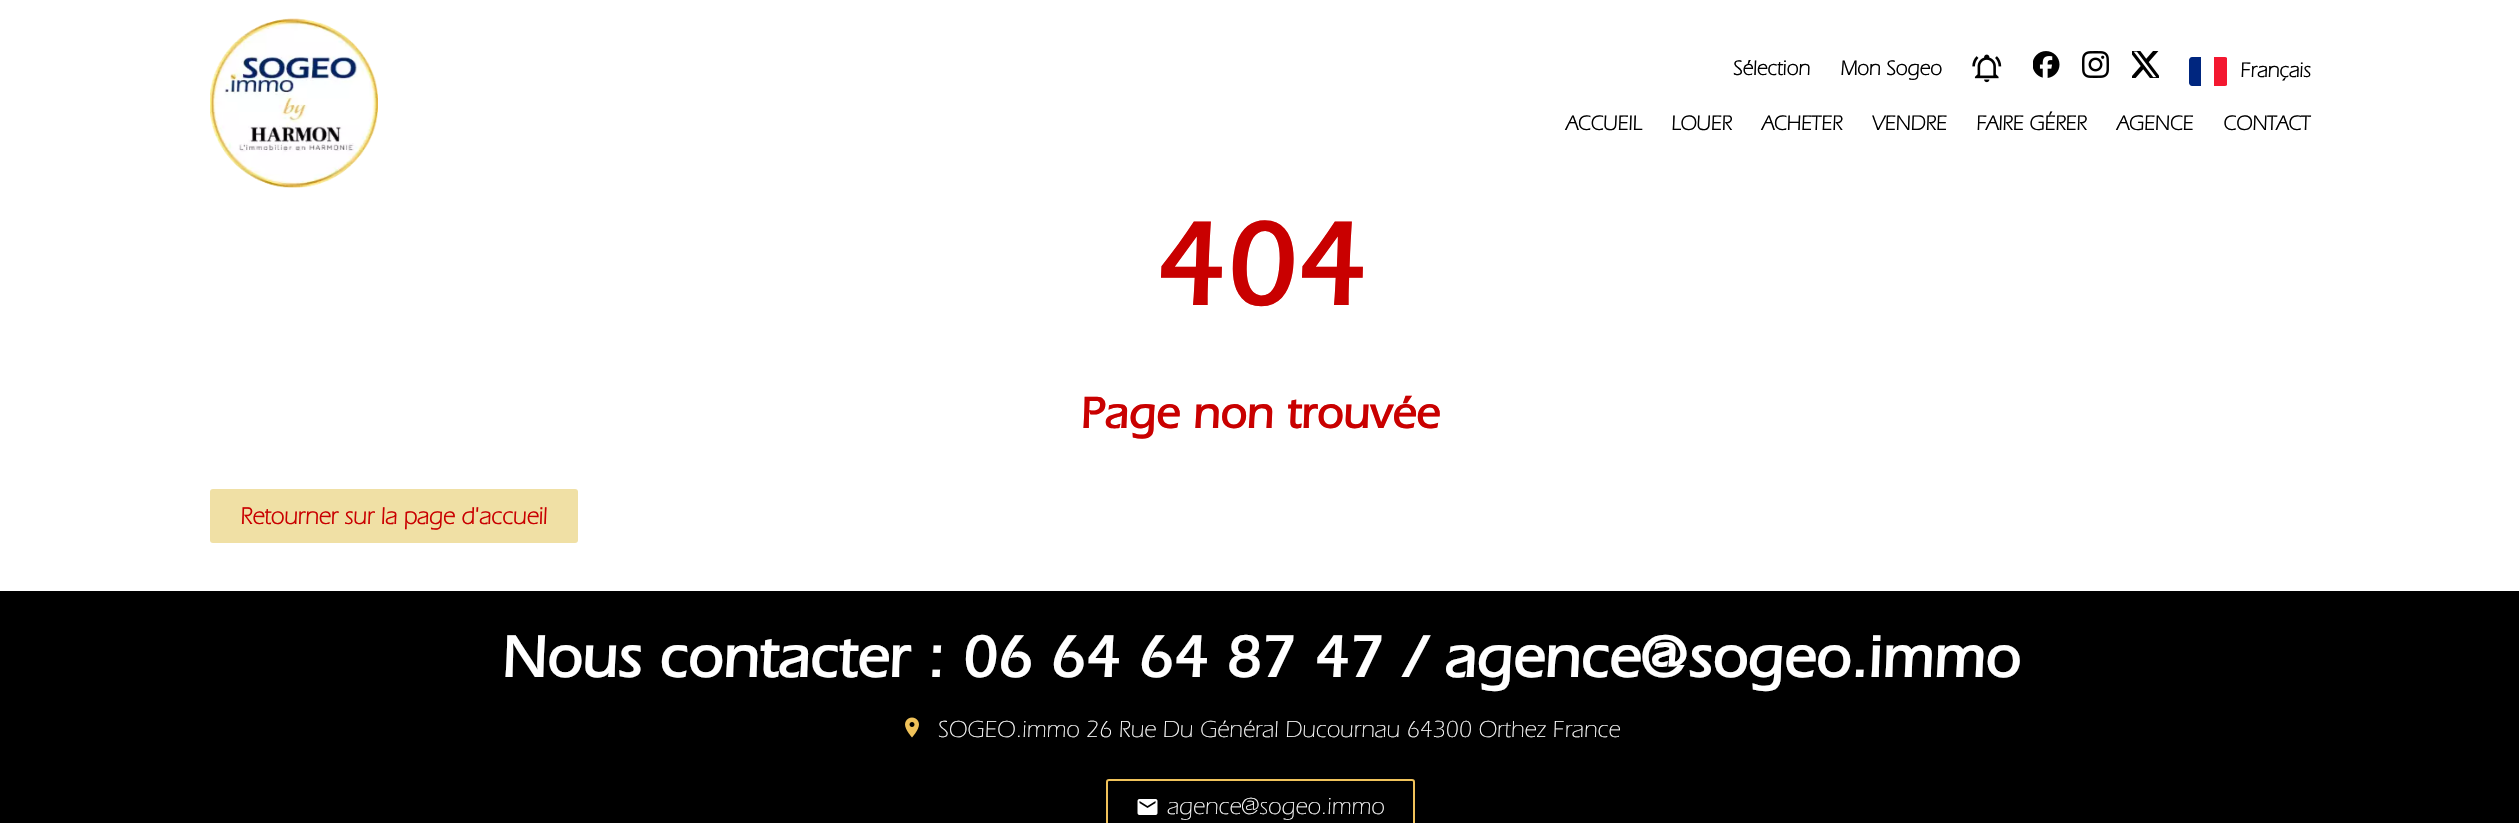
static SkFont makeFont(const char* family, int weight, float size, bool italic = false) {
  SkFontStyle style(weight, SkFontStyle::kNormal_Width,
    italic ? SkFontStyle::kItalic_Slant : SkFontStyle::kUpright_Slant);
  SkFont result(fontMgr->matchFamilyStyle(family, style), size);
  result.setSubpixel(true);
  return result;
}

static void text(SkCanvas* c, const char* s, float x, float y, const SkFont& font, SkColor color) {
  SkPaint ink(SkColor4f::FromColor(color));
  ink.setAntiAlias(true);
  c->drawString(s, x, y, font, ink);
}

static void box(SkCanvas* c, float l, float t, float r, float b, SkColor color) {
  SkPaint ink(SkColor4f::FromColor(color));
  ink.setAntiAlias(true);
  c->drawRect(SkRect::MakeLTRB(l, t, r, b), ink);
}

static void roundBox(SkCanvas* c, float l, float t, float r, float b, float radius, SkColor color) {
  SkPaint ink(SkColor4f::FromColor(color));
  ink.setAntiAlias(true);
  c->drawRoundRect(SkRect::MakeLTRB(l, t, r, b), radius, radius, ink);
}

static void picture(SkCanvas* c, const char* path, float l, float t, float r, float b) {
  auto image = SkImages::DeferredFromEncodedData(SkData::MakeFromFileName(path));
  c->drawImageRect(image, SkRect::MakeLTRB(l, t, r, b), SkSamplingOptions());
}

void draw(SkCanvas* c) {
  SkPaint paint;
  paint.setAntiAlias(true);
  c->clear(0xffffffff);
  picture(c, "img_01.png", 210, 18, 378, 188);
  SkFont face1 = makeFont("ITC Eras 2", 700, 21);
  text(c, "Sélection", 1733, 75, face1, 0xff000000);
  text(c, "Mon Sogeo", 1840, 75, face1, 0xff000000);
  picture(c, "img_02.png", 1972, 54, 2002, 83);
  picture(c, "img_03.png", 2033, 51, 2060, 78);
  picture(c, "img_04.png", 2082, 51, 2109, 78);
  picture(c, "img_05.png", 2132, 51, 2159, 78);
  paint.setColor(0xff00267f);
  c->drawPath(SkPathBuilder().moveTo(2192, 57).lineTo(2201, 57).lineTo(2201, 86).lineTo(2192, 86).cubicTo(2190.5f, 86, 2189, 84.5f, 2189, 83).lineTo(2189, 60).cubicTo(2189, 58.5f, 2190.5f, 57, 2192, 57).close().detach(), paint);
  c->save();
  c->clipPath(SkPathBuilder().moveTo(2192, 57).lineTo(2225, 57).cubicTo(2226.5f, 57, 2228, 58.5f, 2228, 60).lineTo(2228, 83).cubicTo(2228, 84.5f, 2226.5f, 86, 2225, 86).lineTo(2192, 86).cubicTo(2190.5f, 86, 2189, 84.5f, 2189, 83).lineTo(2189, 60).cubicTo(2189, 58.5f, 2190.5f, 57, 2192, 57).close().detach(), true);
  box(c, 2214, 57, 2227, 86, 0xfff31830);
  c->restore();
  text(c, "Français", 2240, 77, face1, 0xff000000);
  text(c, "ACCUEIL", 1566, 130, face1, 0xff000000);
  text(c, "LOUER", 1671, 130, face1, 0xff000000);
  text(c, "ACHETER", 1762, 130, face1, 0xff000000);
  text(c, "VENDRE", 1872, 130, face1, 0xff000000);
  text(c, "FAIRE GÉRER", 1976, 130, face1, 0xff000000);
  text(c, "AGENCE", 2117, 130, face1, 0xff000000);
  text(c, "CONTACT", 2223, 130, face1, 0xff000000);
  SkFont face2 = makeFont("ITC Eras", 700, 120);
  text(c, "404", 1154, 305, face2, 0xffc90000);
  SkFont face3 = makeFont("ITC Eras", 700, 45);
  text(c, "Page non trouvée", 1080, 428, face3, 0xffc90000);
  roundBox(c, 210, 489, 578, 543, 3, 0xfff0e0a5);
  SkFont face4 = makeFont("ITC Eras 2", 700, 24);
  text(c, "Retourner sur la page d'accueil", 240, 524, face4, 0xffc90000);
  box(c, 0, 591, 2519, 823, 0xff000000);
  SkFont face5 = makeFont("ITC Eras", 700, 60);
  text(c, "Nous contacter : 06 64 64 87 47 / agence@sogeo.immo", 501, 677, face5, 0xffffffff);
  picture(c, "img_06.png", 905, 717, 919, 738);
  SkFont face6 = makeFont("ITC Eras", 300, 24);
  text(c, "SOGEO.immo 26 Rue Du Général Ducournau 64300 Orthez France", 938, 737, face6, 0xffffffff);
  paint.setStyle(SkPaint::kStroke_Style);
  paint.setStrokeWidth(2);
  paint.setColor(0xfff0c25a);
  c->drawRoundRect(SkRect::MakeLTRB(1107, 780, 1414, 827), 2, 2, paint);
  picture(c, "img_07.png", 1137, 799, 1158, 815);
  text(c, "agence@sogeo.immo", 1167, 814, face6, 0xffffffff);
}
